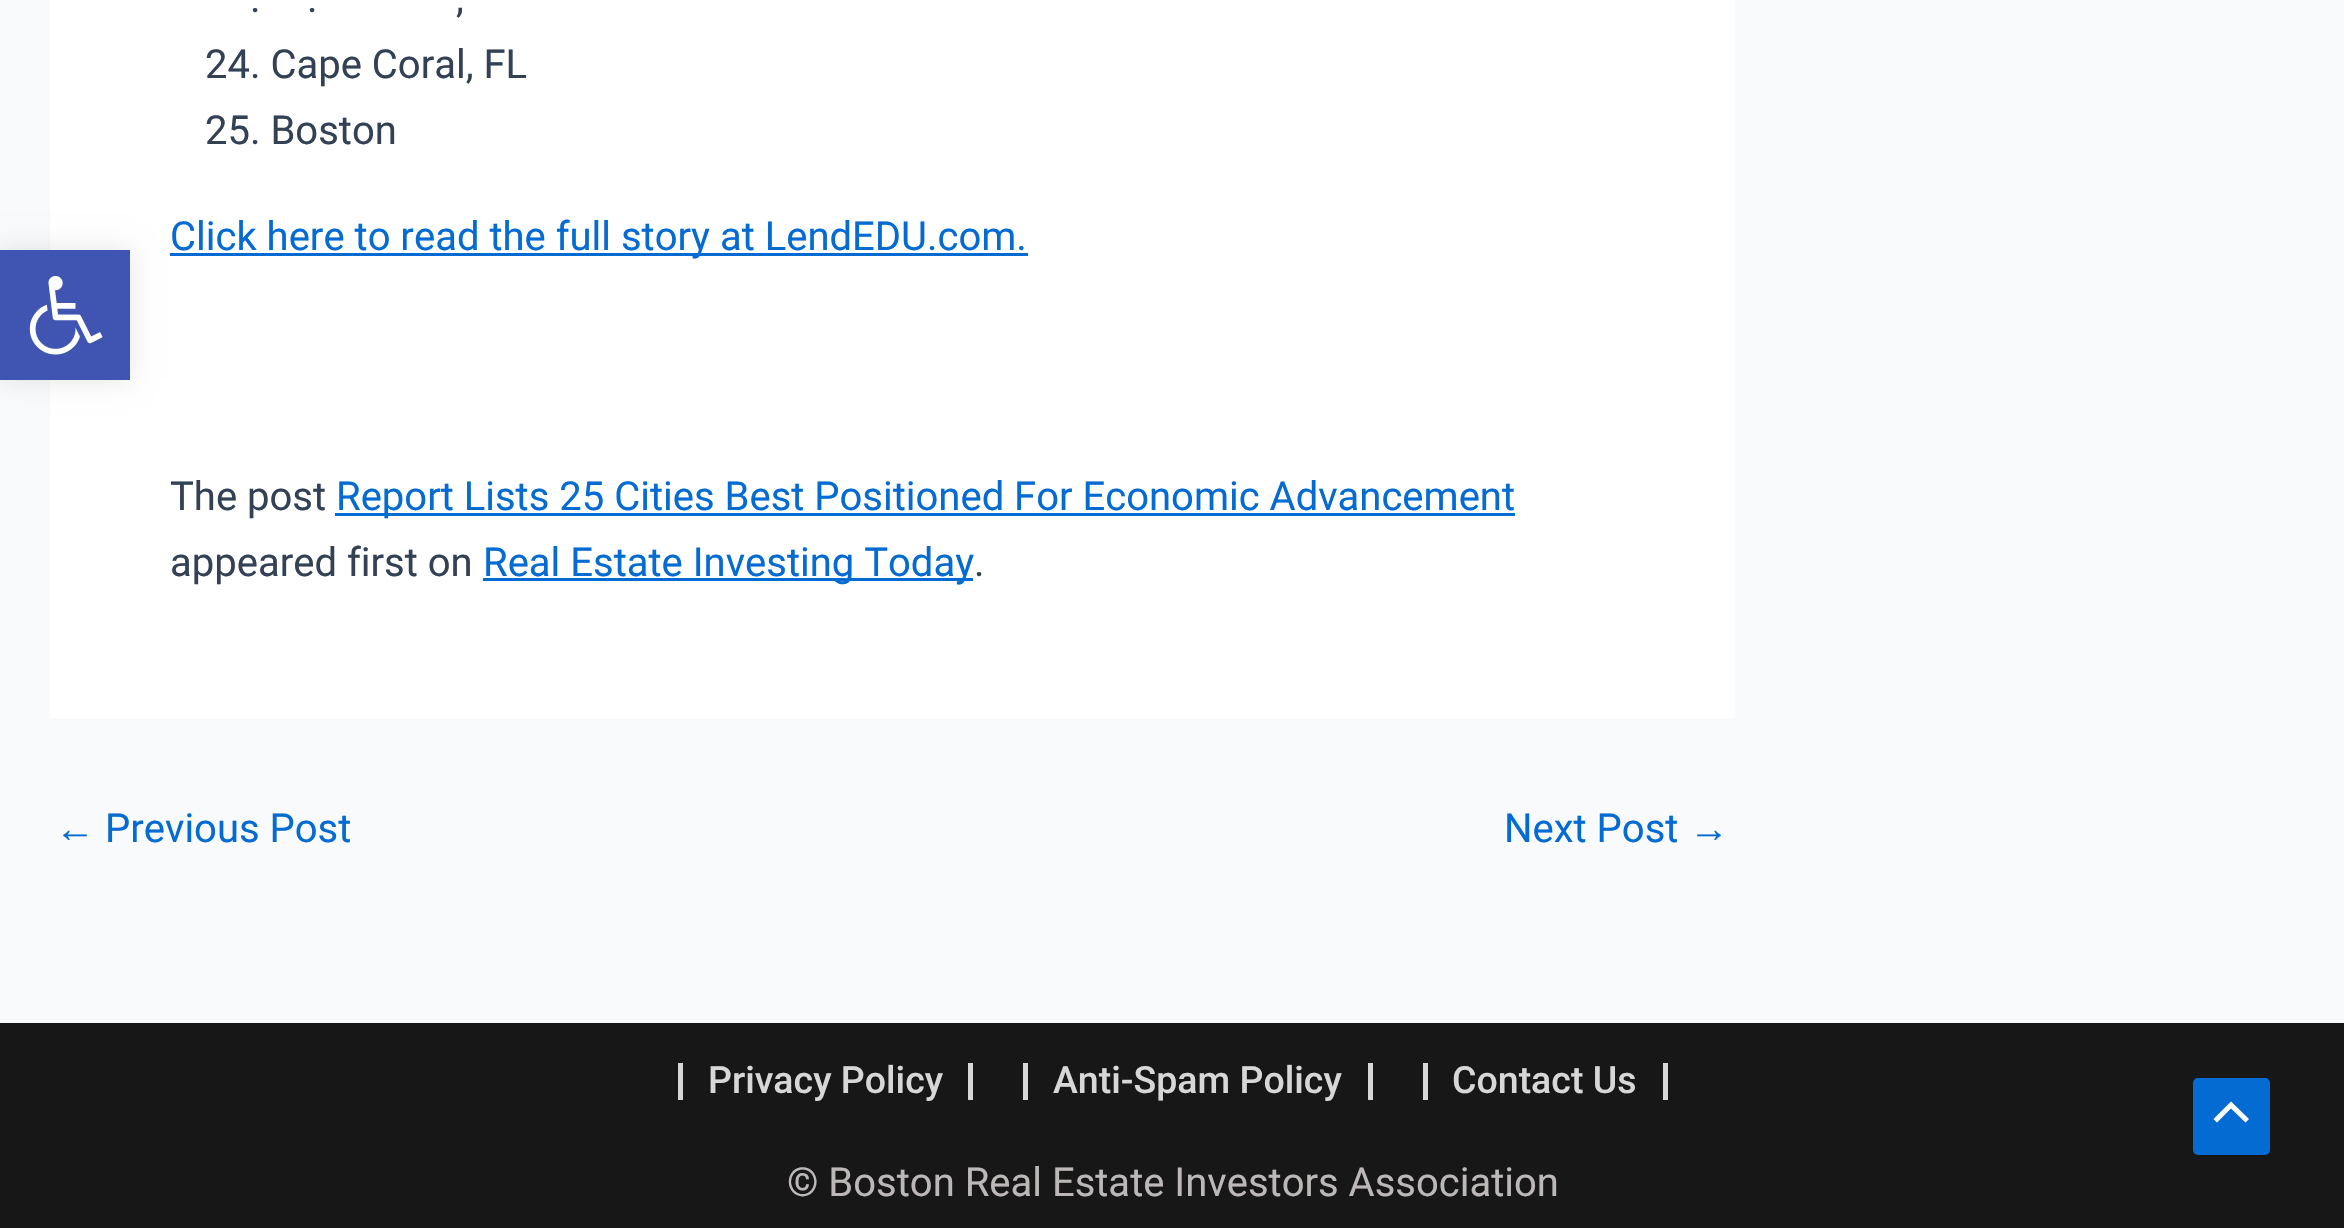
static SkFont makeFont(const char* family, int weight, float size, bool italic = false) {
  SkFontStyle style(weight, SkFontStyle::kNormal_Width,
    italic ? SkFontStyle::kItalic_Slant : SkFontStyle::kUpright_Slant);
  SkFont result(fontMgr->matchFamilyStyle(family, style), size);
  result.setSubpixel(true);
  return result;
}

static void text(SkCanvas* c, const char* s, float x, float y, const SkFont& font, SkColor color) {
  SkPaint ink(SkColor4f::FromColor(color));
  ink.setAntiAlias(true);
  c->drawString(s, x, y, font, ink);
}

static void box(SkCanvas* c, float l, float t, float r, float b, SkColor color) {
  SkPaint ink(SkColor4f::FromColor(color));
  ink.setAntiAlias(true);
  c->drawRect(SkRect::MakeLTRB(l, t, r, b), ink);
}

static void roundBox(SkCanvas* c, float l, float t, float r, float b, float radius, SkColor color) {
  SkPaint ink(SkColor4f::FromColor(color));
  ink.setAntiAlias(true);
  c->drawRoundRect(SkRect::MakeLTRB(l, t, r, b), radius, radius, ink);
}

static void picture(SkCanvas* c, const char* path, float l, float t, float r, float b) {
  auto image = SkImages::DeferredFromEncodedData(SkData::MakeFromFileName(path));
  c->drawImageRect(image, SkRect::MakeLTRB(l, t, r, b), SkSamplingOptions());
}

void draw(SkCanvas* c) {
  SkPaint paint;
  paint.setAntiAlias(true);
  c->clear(0xfff9fafb);
  box(c, 50, 0, 1735, 718, 0xffffffff);
  SkFont face1 = makeFont("Roboto", 400, 40);
  text(c, ".", 250, 12, face1, 0xff334155);
  text(c, ".", 307, 12, face1, 0xff334155);
  text(c, ",", 456, 12, face1, 0xff334155);
  text(c, "24. Cape Coral, FL", 205, 78, face1, 0xff334155);
  text(c, "25. Boston", 205, 144, face1, 0xff334155);
  box(c, 170, 253, 1028, 256, 0xff046bd2);
  text(c, "Click here to read the full story at LendEDU.com.", 170, 250, face1, 0xff046bd2);
  text(c, "The post", 170, 510, face1, 0xff334155);
  box(c, 335, 513, 1515, 516, 0xff046bd2);
  text(c, "Report Lists 25 Cities Best Positioned For Economic Advancement", 336, 510, face1, 0xff046bd2);
  text(c, "appeared first on", 170, 576, face1, 0xff334155);
  box(c, 483, 578, 973, 581, 0xff046bd2);
  text(c, "Real Estate Investing Today", 483, 576, face1, 0xff046bd2);
  text(c, ".", 974, 576, face1, 0xff334155);
  SkFont face2 = makeFont("Liberation Sans", 400, 40);
  text(c, "←", 55, 842, face2, 0xff046bd2);
  text(c, "Previous Post", 105, 842, face1, 0xff046bd2);
  text(c, "Next Post", 1504, 842, face1, 0xff046bd2);
  text(c, "→", 1689, 842, face2, 0xff046bd2);
  box(c, 0, 1023, 2344, 1228, 0xff171717);
  box(c, 968, 1063, 973, 1100, 0xffd7d7d7);
  box(c, 678, 1063, 683, 1100, 0xffd7d7d7);
  SkFont face3 = makeFont("Roboto", 500, 37.5f);
  text(c, "Privacy Policy", 708, 1093, face3, 0xffd7d7d7);
  box(c, 1368, 1063, 1373, 1100, 0xffd7d7d7);
  box(c, 1023, 1063, 1028, 1100, 0xffd7d7d7);
  text(c, "Anti-Spam Policy", 1053, 1093, face3, 0xffd7d7d7);
  box(c, 1663, 1063, 1668, 1100, 0xffd7d7d7);
  box(c, 1423, 1063, 1428, 1100, 0xffd7d7d7);
  text(c, "Contact Us", 1452, 1093, face3, 0xffd7d7d7);
  text(c, "© Boston Real Estate Investors Association", 787, 1196, face1, 0xffbcb8b8);
  paint.setColor(0x1a000000);
  paint.setMaskFilter(SkMaskFilter::MakeBlur(kNormal_SkBlurStyle, 12.5f));
  c->drawRect(SkRect::MakeLTRB(0, 250, 130, 380), paint);
  paint.setMaskFilter(nullptr);
  box(c, 0, 250, 130, 380, 0xff4054b2);
  picture(c, "img_01.png", 29, 276, 103, 355);
  roundBox(c, 2193, 1078, 2270, 1155, 5, 0xff046bd2);
  paint.setColor(0xffffffff);
  c->drawPath(SkPathBuilder().moveTo(2249, 1119).lineTo(2231, 1101.5f).lineTo(2213.5f, 1119).lineTo(2217, 1122.5f).lineTo(2231, 1108.5f).lineTo(2245.5f, 1122.5f).close().detach(), paint);
}
